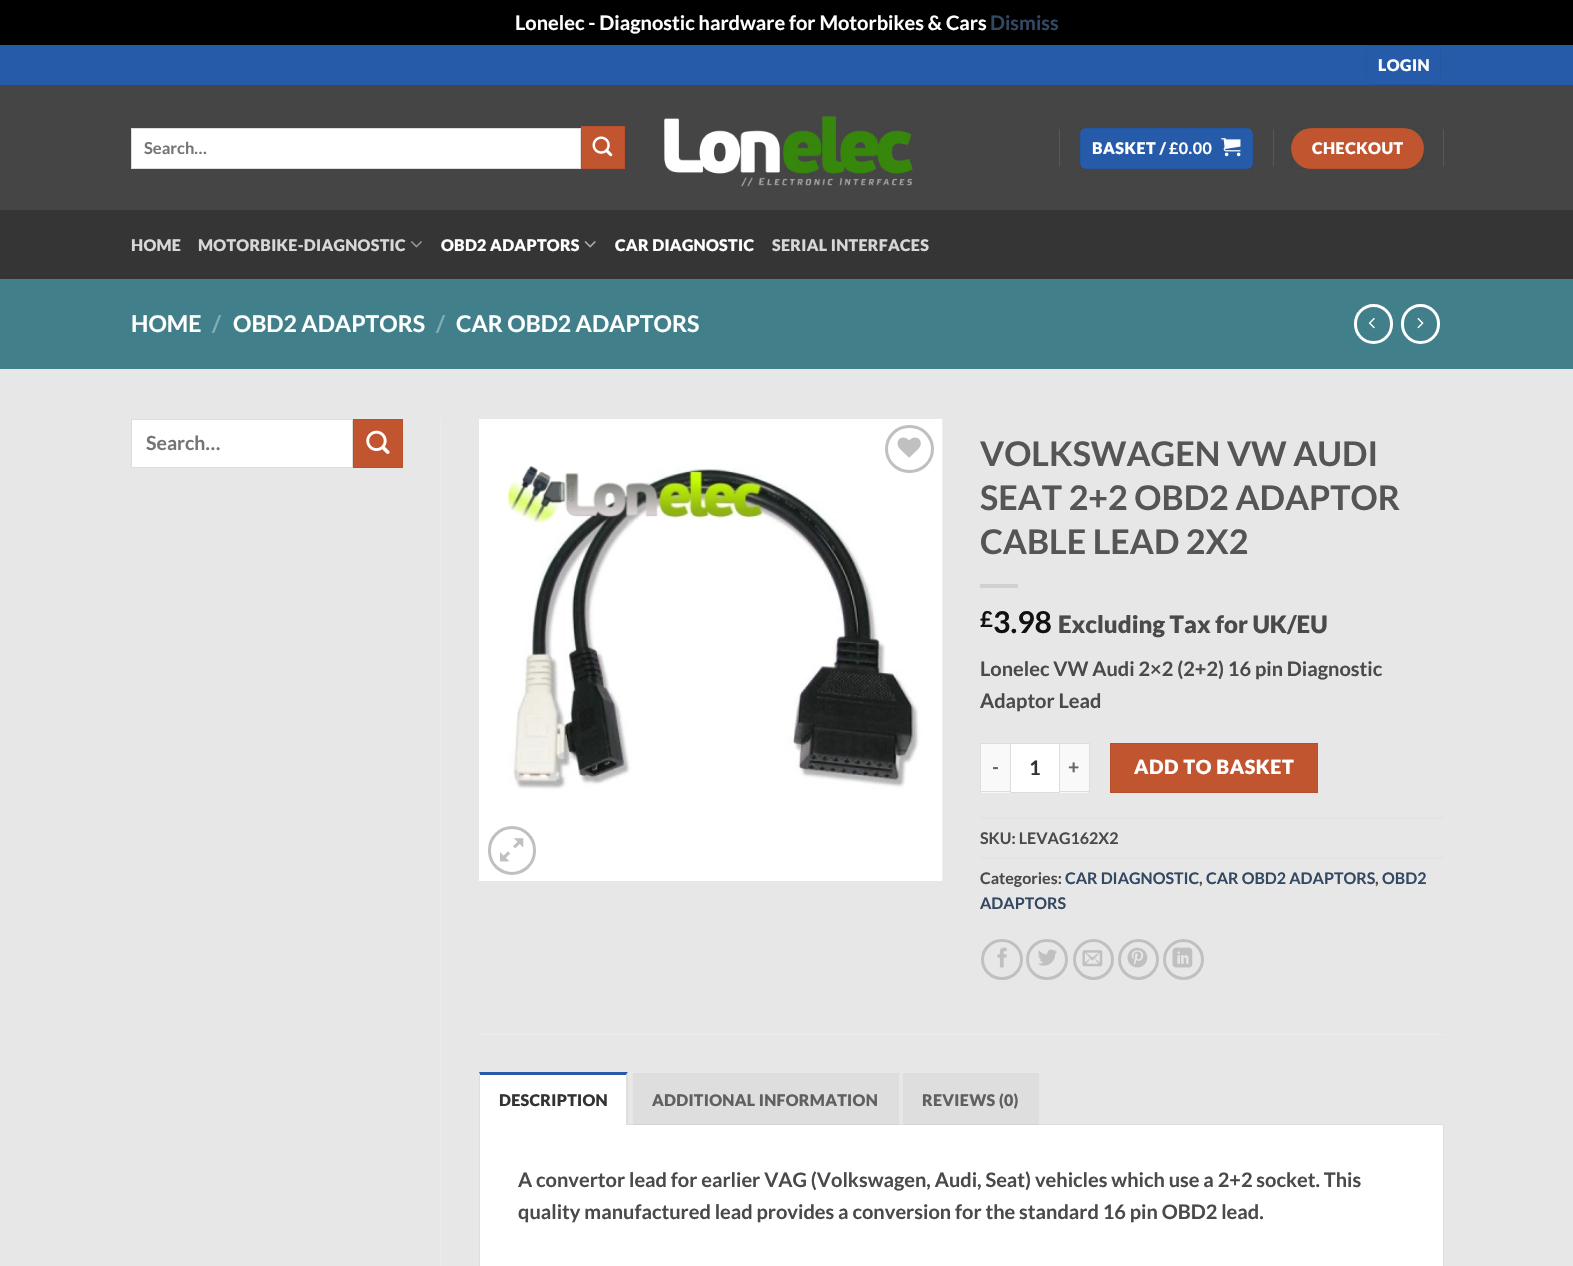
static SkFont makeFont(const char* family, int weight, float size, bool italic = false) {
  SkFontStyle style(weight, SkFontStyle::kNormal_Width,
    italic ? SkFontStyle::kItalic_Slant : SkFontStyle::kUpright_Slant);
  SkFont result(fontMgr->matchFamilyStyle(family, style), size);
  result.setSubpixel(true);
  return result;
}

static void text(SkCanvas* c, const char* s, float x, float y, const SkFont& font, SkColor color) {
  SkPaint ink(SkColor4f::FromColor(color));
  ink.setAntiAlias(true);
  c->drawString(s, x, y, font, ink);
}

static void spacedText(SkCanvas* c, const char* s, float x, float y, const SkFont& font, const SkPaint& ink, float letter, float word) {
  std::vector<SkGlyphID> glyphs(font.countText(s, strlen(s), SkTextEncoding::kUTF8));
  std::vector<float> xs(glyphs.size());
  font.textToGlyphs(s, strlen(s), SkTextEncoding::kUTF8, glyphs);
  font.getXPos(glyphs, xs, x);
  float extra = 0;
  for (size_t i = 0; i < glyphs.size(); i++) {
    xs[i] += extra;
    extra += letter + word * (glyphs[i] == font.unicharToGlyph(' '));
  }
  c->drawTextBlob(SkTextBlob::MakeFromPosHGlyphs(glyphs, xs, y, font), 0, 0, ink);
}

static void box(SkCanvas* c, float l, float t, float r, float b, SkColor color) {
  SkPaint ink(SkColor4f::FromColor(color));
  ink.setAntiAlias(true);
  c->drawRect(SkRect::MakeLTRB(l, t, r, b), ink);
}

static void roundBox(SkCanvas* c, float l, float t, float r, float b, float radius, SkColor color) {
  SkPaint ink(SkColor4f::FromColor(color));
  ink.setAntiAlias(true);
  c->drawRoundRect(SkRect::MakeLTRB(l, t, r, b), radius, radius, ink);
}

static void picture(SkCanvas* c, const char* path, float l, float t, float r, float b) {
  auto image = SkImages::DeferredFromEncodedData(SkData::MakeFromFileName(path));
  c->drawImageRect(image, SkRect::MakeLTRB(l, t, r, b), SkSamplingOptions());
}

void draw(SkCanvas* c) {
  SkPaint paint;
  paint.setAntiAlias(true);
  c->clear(0xff000000);
  SkFont face1 = makeFont("Lato", 700, 20);
  text(c, "Lonelec - Diagnostic hardware for Motorbikes & Cars", 515, 30, face1, 0xffffffff);
  text(c, "Dismiss", 990, 30, face1, 0xff334862);
  box(c, 0, 369, 1573, 1266, 0xffe8e7e7);
  box(c, 0, 45, 1573, 85, 0xff265baa);
  paint.setStyle(SkPaint::kStroke_Style);
  paint.setStrokeWidth(1);
  paint.setColor(0xff2456a2);
  c->drawRoundRect(SkRect::MakeLTRB(1366.5f, 45.5f, 1440.5f, 84.5f), 5.5f, 5.5f, paint);
  SkFont face2 = makeFont("Lato", 900, 16);
  paint.setStyle(SkPaint::kFill_Style);
  paint.setColor(0xffffffff);
  spacedText(c, "LOGIN", 1378, 71, face2, paint, 0.5f, 0);
  box(c, 0, 85, 1573, 210, 0xff454545);
  c->drawRect(SkRect::MakeLTRB(131.5f, 128.5f, 580.5f, 168.5f), paint);
  paint.setStyle(SkPaint::kStroke_Style);
  paint.setColor(0xffdddddd);
  c->drawRect(SkRect::MakeLTRB(131.5f, 128.5f, 580.5f, 168.5f), paint);
  SkFont face3 = makeFont("Lato", 700, 16.5f);
  text(c, "Search…", 144, 154, face3, 0xff757575);
  paint.setStyle(SkPaint::kFill_Style);
  paint.setColor(0xffc05530);
  c->drawRect(SkRect::MakeLTRB(581.5f, 126.5f, 624.5f, 168.5f), paint);
  paint.setStyle(SkPaint::kStroke_Style);
  paint.setColor(0xffb6512e);
  c->drawRect(SkRect::MakeLTRB(581.5f, 126.5f, 624.5f, 168.5f), paint);
  picture(c, "img_01.png", 592, 136, 613, 157);
  picture(c, "img_02.png", 664, 116, 913, 187);
  box(c, 1059, 129, 1060, 166, 0xff585858);
  roundBox(c, 1080, 128, 1253, 169, 6, 0xff265baa);
  paint.setColor(0x0d000000);
  c->drawRect(SkRect::MakeLTRB(1080.5f, 128.5f, 1252.5f, 168.5f), paint);
  paint.setStyle(SkPaint::kFill_Style);
  paint.setColor(0xffffffff);
  spacedText(c, "BASKET /", 1092, 154, face2, paint, 0.5f, 0);
  SkFont face4 = makeFont("Lato", 700, 16);
  spacedText(c, "£0.00", 1169, 154, face4, paint, 0.5f, 0);
  picture(c, "img_03.png", 1221, 138, 1241, 157);
  box(c, 1273, 129, 1274, 166, 0xff585858);
  roundBox(c, 1291, 128, 1424, 169, 20.5f, 0xffc05530);
  paint.setStyle(SkPaint::kStroke_Style);
  paint.setColor(0x0d000000);
  c->drawRect(SkRect::MakeLTRB(1291.5f, 128.5f, 1423.5f, 168.5f), paint);
  paint.setStyle(SkPaint::kFill_Style);
  paint.setColor(0xffffffff);
  spacedText(c, "CHECKOUT", 1312, 154, face2, paint, 0.5f, 0);
  box(c, 1443, 129, 1444, 166, 0xff585858);
  box(c, 0, 210, 1573, 279, 0xff353535);
  paint.setColor(0xffd7d7d7);
  spacedText(c, "HOME", 131, 251, face2, paint, 0.3f, 0);
  spacedText(c, "MOTORBIKE-DIAGNOSTIC", 198, 251, face2, paint, 0.3f, 0);
  picture(c, "img_04.png", 411, 241, 422, 248);
  paint.setColor(0xffffffff);
  spacedText(c, "OBD2 ADAPTORS", 441, 251, face2, paint, 0.3f, 0);
  picture(c, "img_05.png", 584, 241, 596, 248);
  spacedText(c, "CAR DIAGNOSTIC", 615, 251, face2, paint, 0.3f, 0);
  paint.setColor(0xffd7d7d7);
  spacedText(c, "SERIAL INTERFACES", 772, 251, face2, paint, 0.3f, 0);
  box(c, 0, 279, 1573, 369, 0xff41808b);
  SkFont face5 = makeFont("Lato", 700, 23);
  text(c, "HOME", 131, 332, face5, 0xffffffff);
  text(c, "/", 212, 332, face5, 0xff84acb4);
  text(c, "OBD2 ADAPTORS", 233, 332, face5, 0xffffffff);
  text(c, "/", 436, 332, face5, 0xff84acb4);
  text(c, "CAR OBD2 ADAPTORS", 456, 332, face5, 0xffffffff);
  paint.setStyle(SkPaint::kStroke_Style);
  paint.setStrokeWidth(3);
  paint.setColor(0xffffffff);
  c->drawRoundRect(SkRect::MakeLTRB(1355.5f, 305.5f, 1391.5f, 342.5f), 18, 18, paint);
  picture(c, "img_06.png", 1368, 318, 1375, 329);
  c->drawRoundRect(SkRect::MakeLTRB(1402.5f, 305.5f, 1438.5f, 342.5f), 18, 18, paint);
  picture(c, "img_07.png", 1417, 318, 1424, 329);
  paint.setStyle(SkPaint::kFill_Style);
  c->drawRect(SkRect::MakeLTRB(131.5f, 419.5f, 352.5f, 467.5f), paint);
  paint.setStyle(SkPaint::kStroke_Style);
  paint.setStrokeWidth(1);
  paint.setColor(0xffdddddd);
  c->drawRect(SkRect::MakeLTRB(131.5f, 419.5f, 352.5f, 467.5f), paint);
  SkFont face6 = makeFont("Lato", 700, 19.5f);
  text(c, "Search…", 146, 450, face6, 0xff757575);
  paint.setStyle(SkPaint::kFill_Style);
  paint.setColor(0xffc05530);
  c->drawRect(SkRect::MakeLTRB(353.5f, 419.5f, 402.5f, 467.5f), paint);
  paint.setStyle(SkPaint::kStroke_Style);
  paint.setColor(0xffb6512e);
  c->drawRect(SkRect::MakeLTRB(353.5f, 419.5f, 402.5f, 467.5f), paint);
  picture(c, "img_08.png", 366, 430, 390, 454);
  box(c, 440, 419, 441, 1266, 0xffececec);
  picture(c, "img_09.png", 479, 419, 943, 881);
  paint.setStrokeWidth(3);
  paint.setColor(0xffc0c0c0);
  c->drawRoundRect(SkRect::MakeLTRB(886.5f, 426.5f, 932.5f, 471.5f), 22.5f, 22.5f, paint);
  picture(c, "img_10.png", 897, 437, 921, 458);
  c->drawRoundRect(SkRect::MakeLTRB(489.5f, 827.5f, 534.5f, 873.5f), 22.5f, 22.5f, paint);
  picture(c, "img_11.png", 500, 838, 524, 862);
  SkFont face7 = makeFont("Lato", 700, 34);
  text(c, "VOLKSWAGEN VW AUDI", 980, 466, face7, 0xff555555);
  text(c, "SEAT 2+2 OBD2 ADAPTOR", 980, 510, face7, 0xff555555);
  text(c, "CABLE LEAD 2X2", 980, 554, face7, 0xff555555);
  box(c, 980, 584, 1018, 588, 0xffd1d0d0);
  SkFont face8 = makeFont("Lato", 700, 22);
  text(c, "£", 980, 627, face8, 0xff111111);
  SkFont face9 = makeFont("Lato", 700, 30);
  text(c, "3.98", 993, 633, face9, 0xff111111);
  SkFont face10 = makeFont("Lato", 900, 24);
  text(c, "Excluding Tax for UK/EU", 1058, 633, face10, 0xff4a4a4a);
  text(c, "Lonelec VW Audi 2×2 (2+2) 16 pin Diagnostic", 980, 676, face1, 0xff4a4a4a);
  text(c, "Adaptor Lead", 980, 708, face1, 0xff4a4a4a);
  box(c, 981, 744, 1010, 793, 0xfff9f9f9);
  box(c, 980, 743, 1010, 744, 0xffdddddd);
  box(c, 980, 791, 1010, 792, 0xffdddddd);
  box(c, 980, 743, 981, 793, 0xffdddddd);
  paint.setStyle(SkPaint::kFill_Style);
  paint.setColor(0xff666666);
  spacedText(c, "-", 992, 774, face6, paint, 0.6f, 0);
  paint.setColor(0xffffffff);
  c->drawRect(SkRect::MakeLTRB(1010.5f, 743.5f, 1059.5f, 792.5f), paint);
  paint.setStyle(SkPaint::kStroke_Style);
  paint.setStrokeWidth(1);
  paint.setColor(0xffdddddd);
  c->drawRect(SkRect::MakeLTRB(1010.5f, 743.5f, 1059.5f, 792.5f), paint);
  text(c, "1", 1029, 775, face1, 0xff333333);
  box(c, 1060, 744, 1089, 793, 0xfff9f9f9);
  box(c, 1060, 743, 1090, 744, 0xffdddddd);
  box(c, 1089, 743, 1090, 793, 0xffdddddd);
  box(c, 1060, 791, 1090, 792, 0xffdddddd);
  paint.setStyle(SkPaint::kFill_Style);
  paint.setColor(0xff666666);
  spacedText(c, "+", 1068, 774, face6, paint, 0.6f, 0);
  paint.setColor(0xffc05530);
  c->drawRect(SkRect::MakeLTRB(1110.5f, 743.5f, 1317.5f, 792.5f), paint);
  paint.setStyle(SkPaint::kStroke_Style);
  paint.setColor(0xffb6512e);
  c->drawRect(SkRect::MakeLTRB(1110.5f, 743.5f, 1317.5f, 792.5f), paint);
  SkFont face11 = makeFont("Lato", 900, 19.5f);
  paint.setStyle(SkPaint::kFill_Style);
  paint.setColor(0xffffffff);
  spacedText(c, "ADD TO BASKET", 1134, 774, face11, paint, 0.6f, 0);
  paint.setStyle(SkPaint::kStroke_Style);
  paint.setStrokeWidth(1.2f);
  paint.setColor(0xffdddddd);
  paint.setPathEffect(SkDashPathEffect::Make({{1.25f, 1.25f}}, 0));
  c->drawPath(SkPathBuilder().moveTo(980, 818).lineTo(1444, 818).detach(), paint);
  paint.setPathEffect(nullptr);
  text(c, "SKU: LEVAG162X2", 980, 844, face4, 0xff4a4a4a);
  paint.setPathEffect(SkDashPathEffect::Make({{1.25f, 1.25f}}, 0));
  c->drawPath(SkPathBuilder().moveTo(980, 858).lineTo(1444, 858).detach(), paint);
  paint.setPathEffect(nullptr);
  text(c, "Categories:", 980, 884, face4, 0xff4a4a4a);
  text(c, "CAR DIAGNOSTIC", 1065, 884, face4, 0xff334862);
  text(c, ",", 1199, 884, face4, 0xff4a4a4a);
  text(c, "CAR OBD2 ADAPTORS", 1206, 884, face4, 0xff334862);
  text(c, ",", 1375, 884, face4, 0xff4a4a4a);
  text(c, "OBD2", 1382, 884, face4, 0xff334862);
  text(c, "ADAPTORS", 980, 909, face4, 0xff334862);
  paint.setStrokeWidth(3);
  paint.setColor(0xffc0c0c0);
  c->drawRoundRect(SkRect::MakeLTRB(982.5f, 940.5f, 1021.5f, 978.5f), 19, 19, paint);
  picture(c, "img_12.png", 997, 947, 1007, 968);
  c->drawRoundRect(SkRect::MakeLTRB(1027.5f, 940.5f, 1066.5f, 978.5f), 19, 19, paint);
  picture(c, "img_13.png", 1038, 949, 1057, 966);
  c->drawCircle(1093.5f, 959.5f, 19, paint);
  picture(c, "img_14.png", 1082, 950, 1103, 967);
  c->drawCircle(1138.5f, 959.5f, 19, paint);
  picture(c, "img_15.png", 1127, 947, 1148, 968);
  c->drawCircle(1183.5f, 959.5f, 19, paint);
  picture(c, "img_16.png", 1172, 947, 1193, 968);
  box(c, 479, 1034, 1444, 1035, 0xffececec);
  paint.setStyle(SkPaint::kFill_Style);
  paint.setColor(0xffffffff);
  c->drawRect(SkRect::MakeLTRB(479.5f, 1124.5f, 1443.5f, 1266.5f), paint);
  paint.setStyle(SkPaint::kStroke_Style);
  paint.setStrokeWidth(1);
  paint.setColor(0xffdddddd);
  c->drawRect(SkRect::MakeLTRB(479.5f, 1124.5f, 1443.5f, 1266.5f), paint);
  box(c, 479, 1073, 628, 1125, 0xffffffff);
  paint.setStyle(SkPaint::kFill_Style);
  paint.setColor(0xff265baa);
  c->drawPath(SkPathBuilder().moveTo(479, 1072).lineTo(628, 1072).lineTo(626, 1075).lineTo(480, 1075).close().detach(), paint);
  paint.setColor(0xffdddddd);
  c->drawPath(SkPathBuilder().moveTo(628, 1072).lineTo(628, 1125).lineTo(626, 1125).lineTo(626, 1075).close().detach(), paint);
  c->drawPath(SkPathBuilder().moveTo(479, 1125).lineTo(479, 1072).lineTo(480, 1075).lineTo(480, 1125).close().detach(), paint);
  paint.setColor(0xff333333);
  spacedText(c, "DESCRIPTION", 499, 1106, face2, paint, 0.3f, 0);
  box(c, 634, 1076, 898, 1125, 0x0a000000);
  box(c, 633, 1073, 899, 1076, 0xffdddddd);
  box(c, 898, 1073, 899, 1125, 0xffdddddd);
  box(c, 633, 1073, 634, 1125, 0xffdddddd);
  paint.setColor(0xff606060);
  spacedText(c, "ADDITIONAL INFORMATION", 652, 1106, face2, paint, 0.3f, 0);
  box(c, 904, 1076, 1038, 1125, 0x0a000000);
  box(c, 903, 1073, 1039, 1076, 0xffdddddd);
  box(c, 1038, 1073, 1039, 1125, 0xffdddddd);
  box(c, 903, 1073, 904, 1125, 0xffdddddd);
  spacedText(c, "REVIEWS (0)", 922, 1106, face2, paint, 0.3f, 0);
  text(c, "A convertor lead for earlier VAG (Volkswagen, Audi, Seat) vehicles which use a 2+2 socket. This", 518, 1187, face1, 0xff4a4a4a);
  text(c, "quality manufactured lead provides a conversion for the standard 16 pin OBD2 lead.", 518, 1219, face1, 0xff4a4a4a);
}
